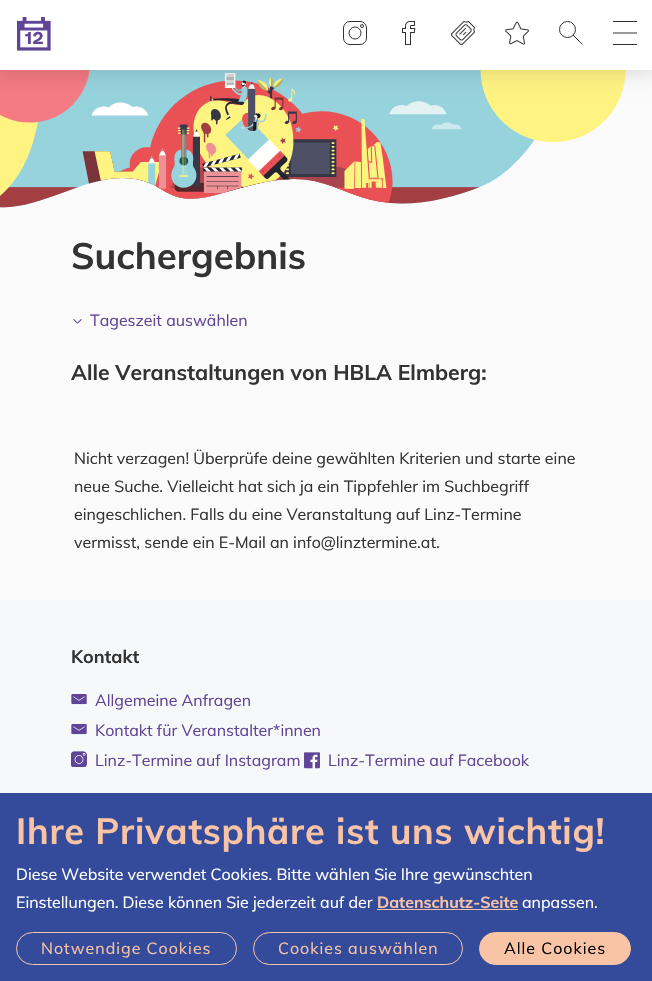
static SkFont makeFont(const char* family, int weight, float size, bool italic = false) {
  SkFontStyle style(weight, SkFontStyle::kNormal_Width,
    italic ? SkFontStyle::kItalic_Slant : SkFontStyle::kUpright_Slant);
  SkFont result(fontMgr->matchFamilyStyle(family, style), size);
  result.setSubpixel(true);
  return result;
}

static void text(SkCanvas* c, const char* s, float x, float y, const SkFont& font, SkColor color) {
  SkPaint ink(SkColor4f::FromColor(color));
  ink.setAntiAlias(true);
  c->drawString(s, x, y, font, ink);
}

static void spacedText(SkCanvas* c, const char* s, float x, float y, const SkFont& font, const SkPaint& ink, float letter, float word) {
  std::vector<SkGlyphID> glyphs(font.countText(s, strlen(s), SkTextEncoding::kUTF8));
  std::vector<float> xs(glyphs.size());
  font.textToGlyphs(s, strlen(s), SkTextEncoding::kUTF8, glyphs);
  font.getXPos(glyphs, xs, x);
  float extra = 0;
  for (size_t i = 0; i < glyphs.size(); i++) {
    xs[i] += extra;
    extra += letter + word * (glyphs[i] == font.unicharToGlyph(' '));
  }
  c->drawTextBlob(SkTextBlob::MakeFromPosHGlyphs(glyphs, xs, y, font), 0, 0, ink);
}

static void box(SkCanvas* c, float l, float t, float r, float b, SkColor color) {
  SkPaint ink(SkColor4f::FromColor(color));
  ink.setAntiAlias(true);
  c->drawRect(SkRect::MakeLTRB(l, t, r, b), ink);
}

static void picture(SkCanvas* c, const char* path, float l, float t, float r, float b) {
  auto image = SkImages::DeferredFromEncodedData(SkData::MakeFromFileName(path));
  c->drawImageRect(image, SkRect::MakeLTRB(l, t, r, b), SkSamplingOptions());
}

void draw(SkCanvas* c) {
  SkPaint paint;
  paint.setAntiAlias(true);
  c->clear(0xfffbfbfc);
  picture(c, "img_05.png", 0, 70, 626, 208);
  paint.setColor(0x1f000000);
  paint.setMaskFilter(SkMaskFilter::MakeBlur(kNormal_SkBlurStyle, 9.5f));
  c->drawRect(SkRect::MakeLTRB(-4, -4, 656, 74), paint);
  paint.setMaskFilter(nullptr);
  box(c, 0, 0, 652, 70, 0xffffffff);
  picture(c, "img_01.png", 17, 17, 51, 51);
  SkFont face1 = makeFont("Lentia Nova", 700, 17);
  text(c, "12", 25, 44, face1, 0xff604596);
  paint.setStyle(SkPaint::kStroke_Style);
  paint.setStrokeWidth(1);
  paint.setColor(0xff333333);
  c->drawRoundRect(SkRect::MakeLTRB(343.5f, 21.5f, 366.5f, 44.5f), 6.5f, 6.5f, paint);
  c->drawCircle(355, 33, 6, paint);
  c->drawCircle(362, 26, 1.5f, paint);
  picture(c, "img_02.png", 402, 21, 416, 45);
  picture(c, "img_03.png", 451, 21, 475, 45);
  picture(c, "img_04.png", 505, 21, 529, 45);
  c->drawCircle(567.5f, 29.5f, 8, paint);
  c->drawPath(SkPathBuilder().moveTo(573, 35).lineTo(582.5f, 44.5f).detach(), paint);
  c->drawPath(SkPathBuilder().moveTo(613, 21.5f).lineTo(637, 21.5f).moveTo(613, 33).lineTo(637, 33).moveTo(613, 44.5f).lineTo(637, 44.5f).detach(), paint);
  SkFont face2 = makeFont("Muli", 700, 36.5f);
  text(c, "Suchergebnis", 71, 269, face2, 0xff333333);
  paint.setStyle(SkPaint::kFill_Style);
  paint.setColor(0xff604596);
  c->drawPath(SkPathBuilder().moveTo(73, 319.5f).lineTo(77, 323.5f).lineTo(78, 323).lineTo(74, 319).close().detach(), paint);
  c->drawPath(SkPathBuilder().moveTo(78, 323.5f).lineTo(82, 319.5f).lineTo(81, 319).lineTo(77, 323).close().detach(), paint);
  SkFont face3 = makeFont("Muli", 400, 16);
  text(c, "Tageszeit auswählen", 90, 326, face3, 0xff604596);
  SkFont face4 = makeFont("Muli", 700, 21.2f);
  text(c, "Alle Veranstaltungen von HBLA Elmberg:", 71, 380, face4, 0xff333333);
  text(c, "Nicht verzagen! Überprüfe deine gewählten Kriterien und starte eine", 74, 464, face3, 0xff333333);
  text(c, "neue Suche. Vielleicht hat sich ja ein Tippfehler im Suchbegriff", 74, 492, face3, 0xff333333);
  text(c, "eingeschlichen. Falls du eine Veranstaltung auf Linz-Termine", 74, 520, face3, 0xff333333);
  text(c, "vermisst, sende ein E-Mail an info@linztermine.at.", 74, 548, face3, 0xff333333);
  box(c, 0, 600, 652, 793, 0xfff7f8fa);
  SkFont face5 = makeFont("Muli", 700, 18);
  text(c, "Kontakt", 71, 663, face5, 0xff333333);
  picture(c, "img_06.png", 71, 694, 87, 705);
  text(c, "Allgemeine Anfragen", 95, 706, face3, 0xff604596);
  picture(c, "img_06.png", 71, 724, 87, 735);
  text(c, "Kontakt für Veranstalter*innen", 95, 736, face3, 0xff604596);
  picture(c, "img_07.png", 71, 751, 87, 767);
  text(c, "Linz-Termine auf Instagram", 95, 766, face3, 0xff604596);
  picture(c, "img_08.png", 304, 752, 320, 769);
  text(c, "Linz-Termine auf Facebook", 328, 766, face3, 0xff604596);
  box(c, 0, 793, 652, 981, 0xff344a9a);
  SkFont face6 = makeFont("Muli", 700, 36);
  paint.setColor(0xfff9c4a6);
  spacedText(c, "Ihre Privatsphäre ist uns wichtig!", 16, 844, face6, paint, 0.75f, 0);
  text(c, "Diese Website verwendet Cookies. Bitte wählen Sie Ihre gewünschten", 16, 880, face3, 0xffffffff);
  text(c, "Einstellungen. Diese können Sie jederzeit auf der", 16, 908, face3, 0xffffffff);
  SkFont face7 = makeFont("Muli", 700, 16);
  text(c, "Datenschutz-Seite", 377, 908, face7, 0xfff9c4a6);
  box(c, 377, 909, 518, 910, 0xfff9c4a6);
  text(c, "anpassen.", 522, 908, face3, 0xffffffff);
  paint.setStyle(SkPaint::kStroke_Style);
  c->drawRoundRect(SkRect::MakeLTRB(16.5f, 932.5f, 236.5f, 964.5f), 16, 16, paint);
  paint.setStyle(SkPaint::kFill_Style);
  spacedText(c, "Notwendige Cookies", 41, 954, face3, paint, 1, 0);
  paint.setStyle(SkPaint::kStroke_Style);
  c->drawRoundRect(SkRect::MakeLTRB(253.5f, 932.5f, 462.5f, 964.5f), 16, 16, paint);
  paint.setStyle(SkPaint::kFill_Style);
  spacedText(c, "Cookies auswählen", 278, 954, face3, paint, 1, 0);
  c->drawRoundRect(SkRect::MakeLTRB(479.5f, 932.5f, 630.5f, 964.5f), 16, 16, paint);
  paint.setStyle(SkPaint::kStroke_Style);
  c->drawRoundRect(SkRect::MakeLTRB(479.5f, 932.5f, 630.5f, 964.5f), 16, 16, paint);
  paint.setStyle(SkPaint::kFill_Style);
  paint.setColor(0xff000000);
  spacedText(c, "Alle Cookies", 504, 954, face3, paint, 1, 0);
}
